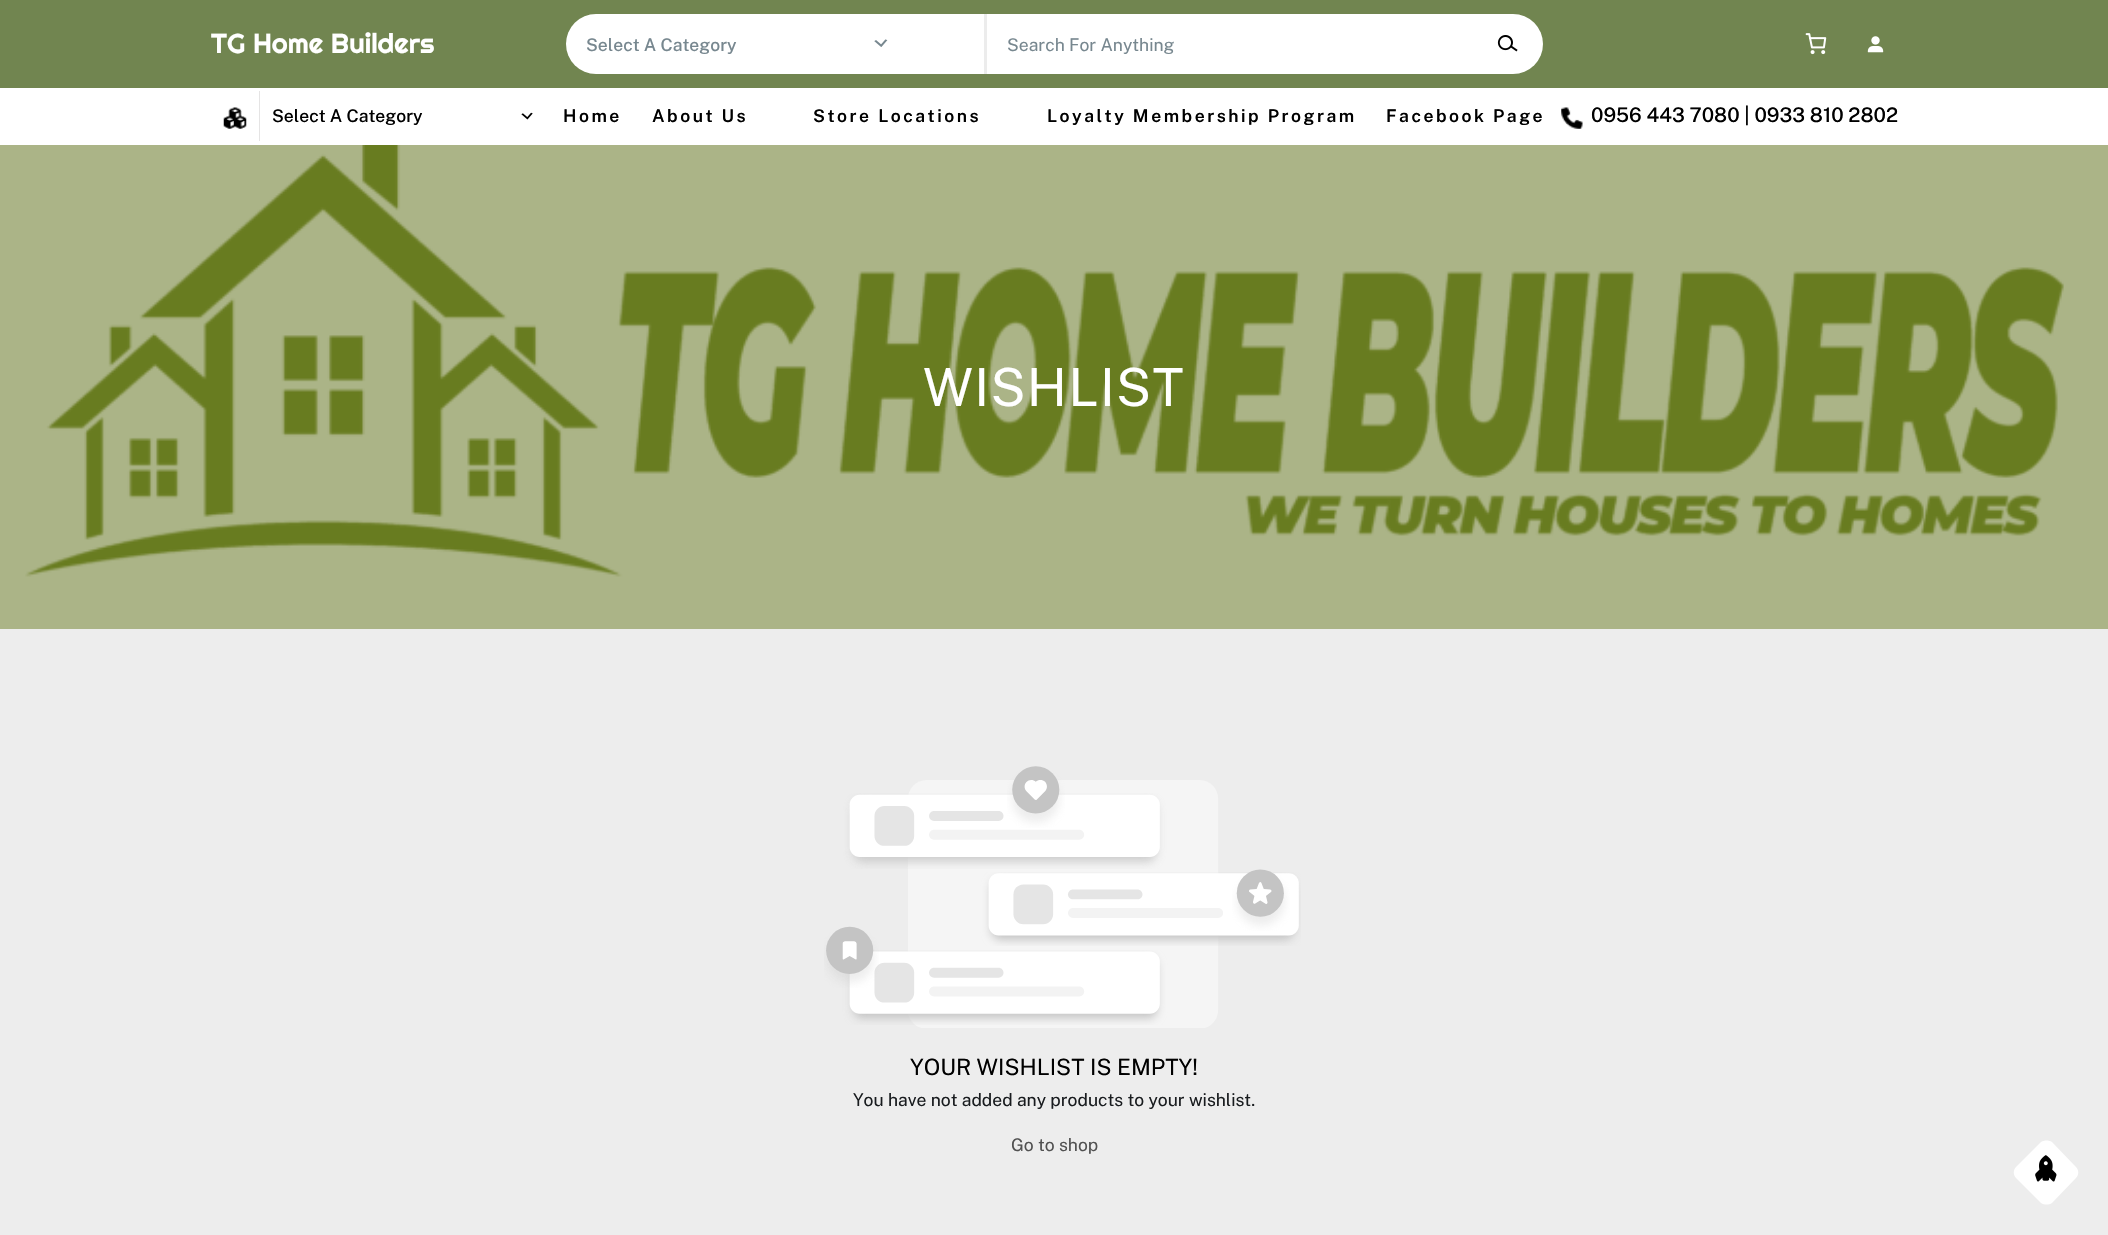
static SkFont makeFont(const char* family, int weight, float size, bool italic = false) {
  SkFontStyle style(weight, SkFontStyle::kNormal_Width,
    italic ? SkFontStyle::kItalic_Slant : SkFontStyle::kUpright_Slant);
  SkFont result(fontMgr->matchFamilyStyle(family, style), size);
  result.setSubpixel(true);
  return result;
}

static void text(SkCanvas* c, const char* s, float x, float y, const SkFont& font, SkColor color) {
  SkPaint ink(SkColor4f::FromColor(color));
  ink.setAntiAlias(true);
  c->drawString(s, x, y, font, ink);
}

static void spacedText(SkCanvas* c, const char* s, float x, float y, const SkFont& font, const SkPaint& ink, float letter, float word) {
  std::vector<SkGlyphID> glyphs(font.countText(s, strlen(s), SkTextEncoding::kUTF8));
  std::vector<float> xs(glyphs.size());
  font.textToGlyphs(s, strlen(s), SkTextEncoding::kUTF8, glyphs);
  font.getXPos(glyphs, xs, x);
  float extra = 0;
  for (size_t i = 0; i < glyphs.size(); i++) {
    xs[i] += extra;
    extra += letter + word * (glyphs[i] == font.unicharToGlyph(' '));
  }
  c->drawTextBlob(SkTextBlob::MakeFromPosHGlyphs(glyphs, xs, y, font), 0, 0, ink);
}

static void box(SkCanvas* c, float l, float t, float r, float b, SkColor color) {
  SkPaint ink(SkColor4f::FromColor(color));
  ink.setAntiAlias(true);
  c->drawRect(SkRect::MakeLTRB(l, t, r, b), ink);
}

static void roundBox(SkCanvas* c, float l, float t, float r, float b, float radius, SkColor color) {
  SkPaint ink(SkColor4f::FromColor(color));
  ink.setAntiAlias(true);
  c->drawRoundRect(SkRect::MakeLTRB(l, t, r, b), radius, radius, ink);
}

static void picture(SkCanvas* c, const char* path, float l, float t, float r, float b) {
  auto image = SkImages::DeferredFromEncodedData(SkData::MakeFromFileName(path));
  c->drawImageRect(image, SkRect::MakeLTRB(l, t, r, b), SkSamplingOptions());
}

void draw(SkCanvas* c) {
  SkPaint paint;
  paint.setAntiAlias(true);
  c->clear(0xffededed);
  box(c, 0, 145, 2108, 629, 0xffabb487);
  box(c, 0, 0, 2108, 88, 0xff718550);
  SkFont face1 = makeFont("Righteous", 400, 27.5f);
  text(c, "TG Home Builders", 211, 53, face1, 0xffffffff);
  roundBox(c, 566, 14, 1543, 74, 30, 0xffffffff);
  SkFont face2 = makeFont("Public Sans", 500, 17.5f);
  text(c, "Select A Category", 586, 51, face2, 0xff77878f);
  picture(c, "img_01.png", 874, 39, 888, 47);
  box(c, 984, 14, 987, 74, 0xffececec);
  SkFont face3 = makeFont("Public Sans", 400, 17.5f);
  text(c, "Search For Anything", 1007, 51, face3, 0xff77878f);
  picture(c, "img_02.png", 1497, 35, 1518, 52);
  picture(c, "img_03.png", 1805, 33, 1827, 55);
  picture(c, "img_04.png", 1867, 36, 1884, 53);
  box(c, 0, 88, 2108, 145, 0xffffffff);
  picture(c, "img_05.png", 223, 107, 247, 129);
  box(c, 259, 91, 260, 141, 0xffe5e4e4);
  text(c, "Select A Category", 272, 122, face2, 0xff000000);
  picture(c, "img_06.png", 521, 112, 533, 120);
  SkFont face4 = makeFont("Public Sans", 600, 17.5f);
  paint.setColor(0xff000000);
  spacedText(c, "Home", 563, 122, face4, paint, 2.5f, 0);
  spacedText(c, "About Us", 652, 122, face4, paint, 2.5f, 0);
  spacedText(c, "Store Locations", 813, 122, face4, paint, 2.5f, 0);
  spacedText(c, "Loyalty Membership Program", 1047, 122, face4, paint, 2.5f, 0);
  spacedText(c, "Facebook Page", 1386, 122, face4, paint, 2.5f, 0);
  picture(c, "img_07.png", 1561, 107, 1583, 129);
  SkFont face5 = makeFont("Public Sans", 500, 20);
  text(c, "0956 443 7080 | 0933 810 2802", 1591, 122, face5, 0xff000000);
  picture(c, "img_08.png", 25, 145, 2064, 577);
  SkFont face6 = makeFont("Public Sans", 400, 52.5f);
  paint.setColor(0xffffffff);
  spacedText(c, "WISHLIST", 923, 406, face6, paint, 1.25f, 0);
  picture(c, "img_09.png", 824, 766, 1301, 1028);
  SkFont face7 = makeFont("Public Sans", 400, 22.5f);
  text(c, "YOUR WISHLIST IS EMPTY!", 910, 1075, face7, 0xff000000);
  text(c, "You have not added any products to your wishlist.", 853, 1106, face3, 0xff191c1f);
  text(c, "Go to shop", 1011, 1151, face3, 0xff515151);
  c->drawPath(SkPathBuilder().moveTo(2016, 1167).lineTo(2041, 1142).cubicTo(2044, 1140, 2049, 1140, 2052, 1142).lineTo(2076, 1167).cubicTo(2079, 1170, 2079, 1175, 2076, 1178).lineTo(2052, 1203).cubicTo(2049, 1205, 2044, 1205, 2041, 1203).lineTo(2016, 1178).cubicTo(2013, 1175, 2013, 1170, 2016, 1167).close().detach(), paint);
  picture(c, "img_10.png", 2035, 1155, 2057, 1182);
}
